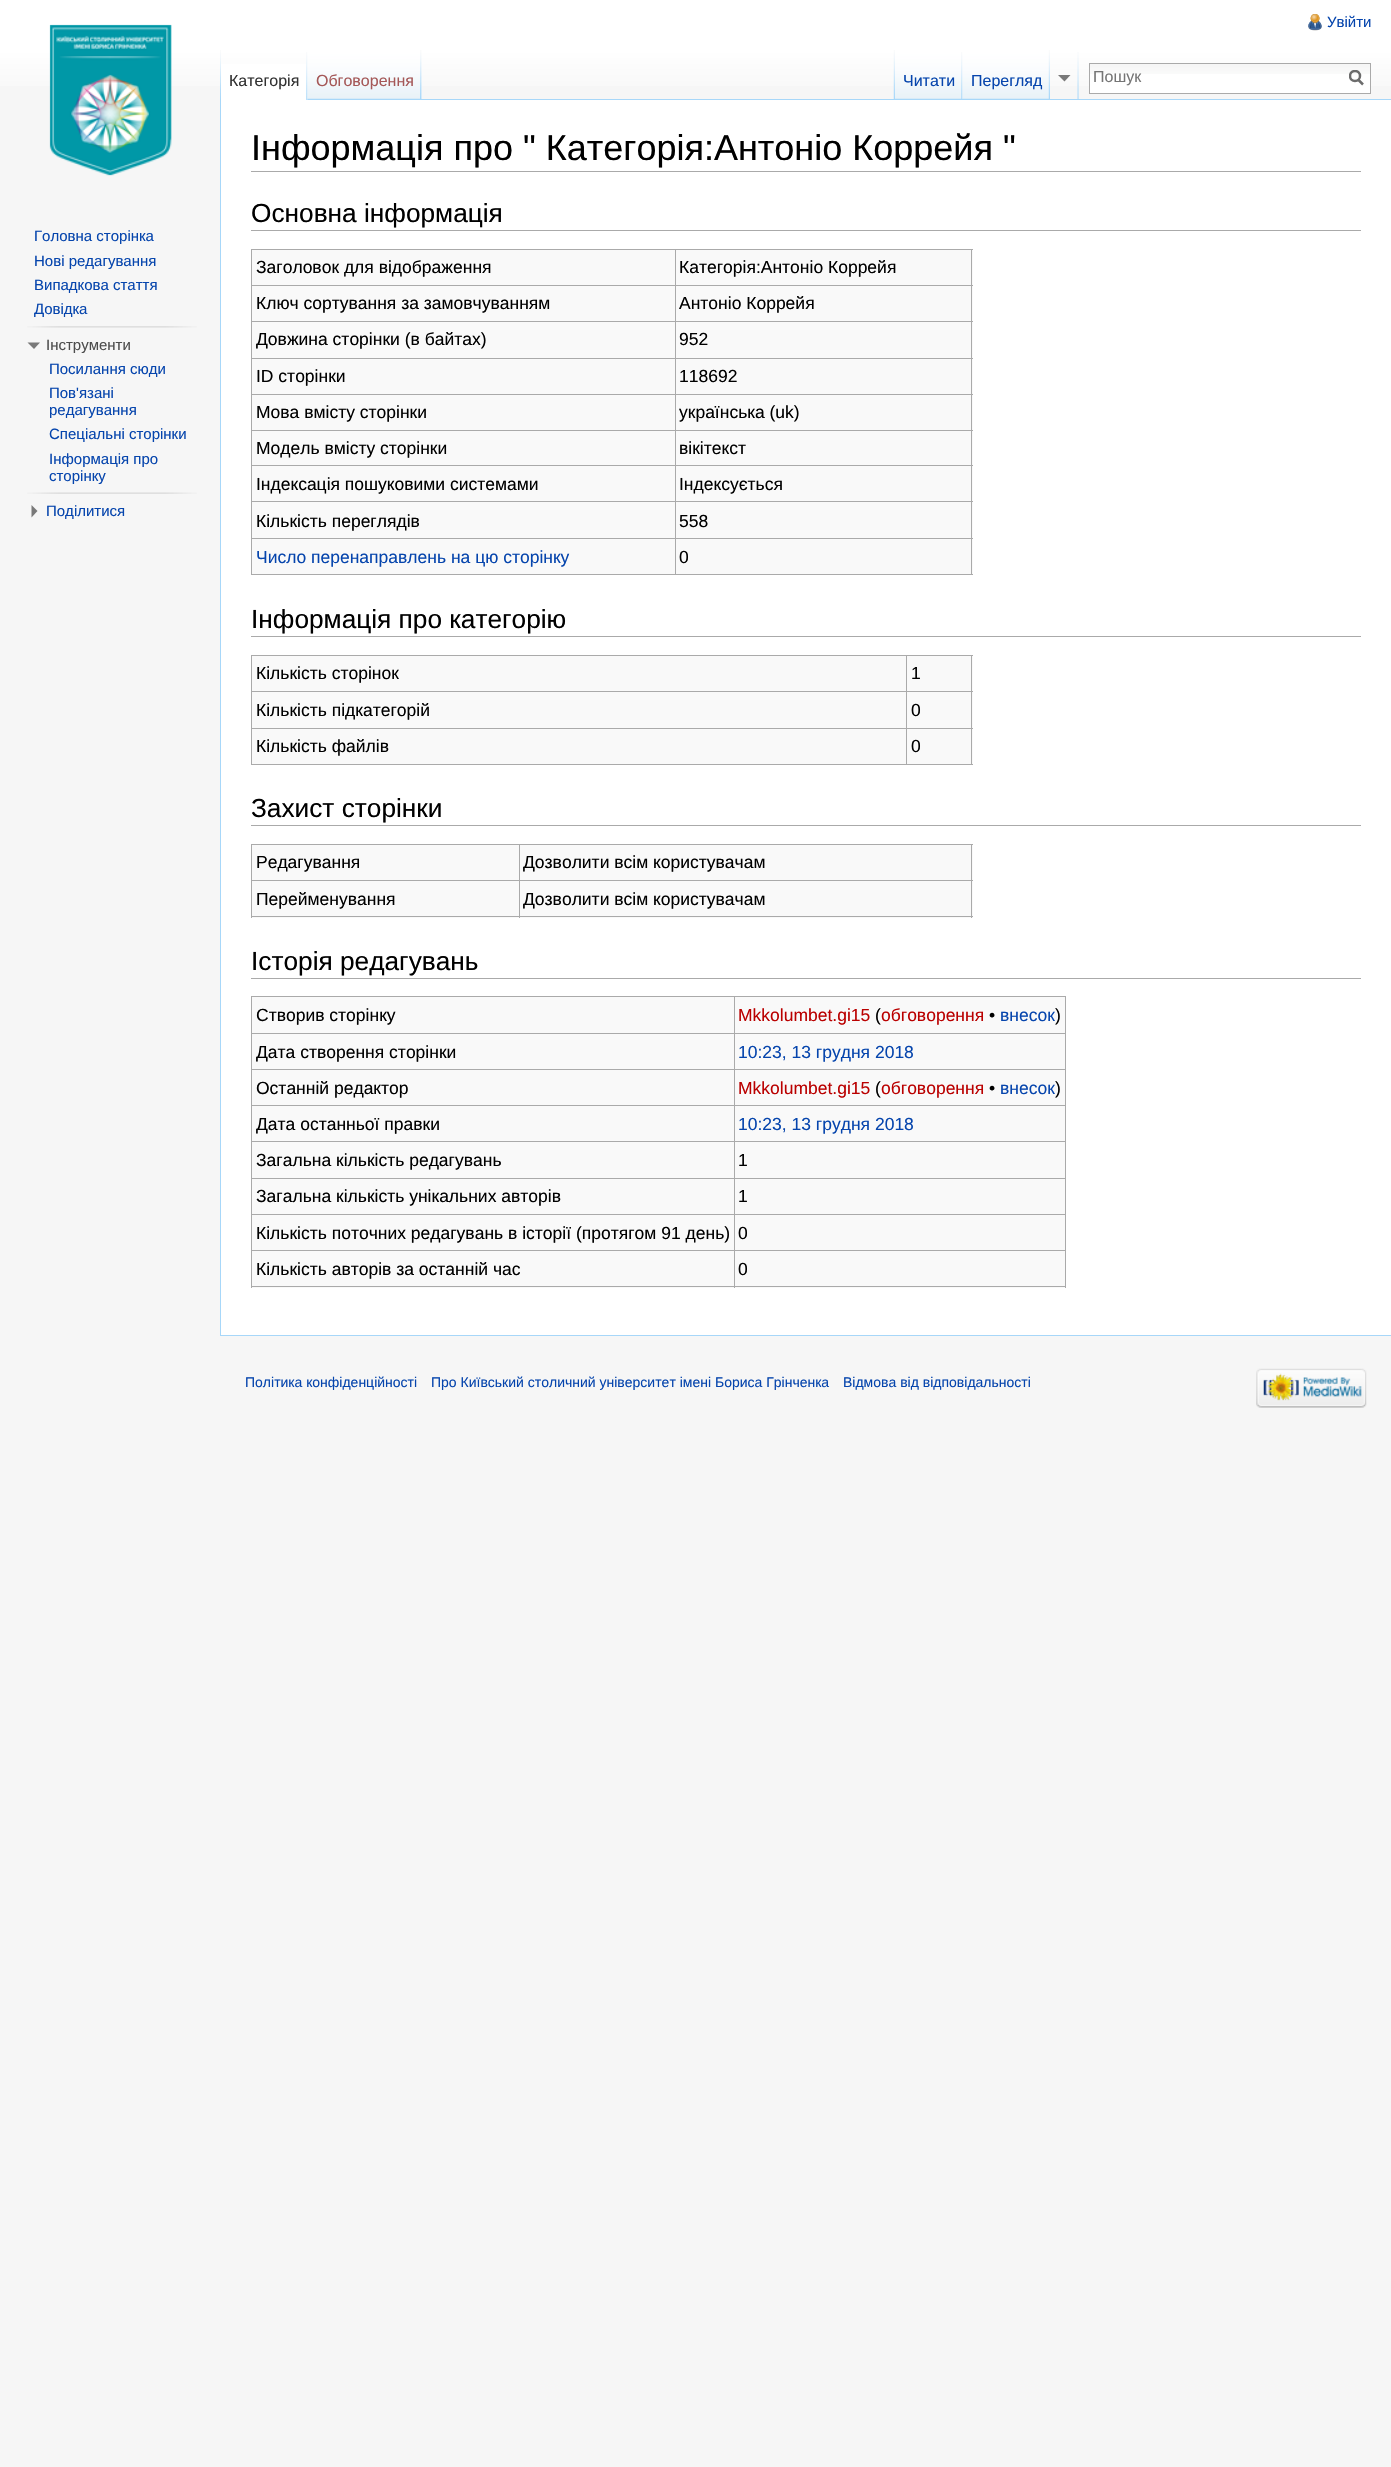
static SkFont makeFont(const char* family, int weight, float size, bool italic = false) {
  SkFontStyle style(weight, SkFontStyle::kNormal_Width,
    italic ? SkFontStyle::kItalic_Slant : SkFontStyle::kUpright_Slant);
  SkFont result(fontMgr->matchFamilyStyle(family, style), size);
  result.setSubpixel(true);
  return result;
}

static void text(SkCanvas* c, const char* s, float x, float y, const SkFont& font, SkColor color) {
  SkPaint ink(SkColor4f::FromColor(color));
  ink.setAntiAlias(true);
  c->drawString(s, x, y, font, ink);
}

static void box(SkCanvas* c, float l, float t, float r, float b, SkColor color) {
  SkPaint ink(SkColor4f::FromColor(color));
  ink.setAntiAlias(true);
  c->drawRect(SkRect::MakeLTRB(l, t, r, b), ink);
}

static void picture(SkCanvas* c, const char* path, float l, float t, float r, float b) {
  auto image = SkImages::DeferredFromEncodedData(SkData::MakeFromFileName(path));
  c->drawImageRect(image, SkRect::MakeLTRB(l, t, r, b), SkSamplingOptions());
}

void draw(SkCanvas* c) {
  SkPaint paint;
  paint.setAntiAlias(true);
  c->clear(0xfff6f6f6);
  {
    const SkColor colors[] = {0xffffffff, 0xfff6f6f6};
    const float stops[] = {0.5f, 1};
    const SkPoint ends[] = {{696, 0}, {696, 100}};
    paint.setShader(SkGradientShader::MakeLinear(ends, colors, stops, 2, SkTileMode::kClamp));
    paint.setAlpha(255);
  }
  c->drawRect(SkRect::MakeLTRB(0, 0, 1391, 86), paint);
  picture(c, "img_01.png", 1308, 14, 1322, 31);
  SkFont face1 = makeFont("Liberation Sans", 400, 15);
  text(c, "Увійти", 1327, 27, face1, 0xff0645ad);
  picture(c, "img_02.png", 220, 50, 221, 99);
  picture(c, "img_03.png", 421, 50, 422, 99);
  box(c, 221, 64, 308, 100, 0xffffffff);
  picture(c, "img_04.png", 306, 52, 308, 100);
  SkFont face2 = makeFont("Liberation Sans", 400, 16);
  text(c, "Категорія", 229, 86, face2, 0xff333333);
  picture(c, "img_05.png", 307, 50, 421, 100);
  picture(c, "img_06.png", 420, 50, 422, 99);
  text(c, "Обговорення", 316, 86, face2, 0xffa55858);
  picture(c, "img_07.png", 893, 50, 895, 99);
  box(c, 421, 99, 1391, 100, 0xffa7d7f9);
  picture(c, "img_08.png", 895, 50, 963, 100);
  picture(c, "img_09.png", 961, 52, 963, 100);
  text(c, "Читати", 903, 86, face2, 0xff0645ad);
  picture(c, "img_10.png", 962, 50, 1050, 100);
  picture(c, "img_11.png", 1048, 50, 1050, 99);
  text(c, "Перегляд", 971, 86, face2, 0xff0645ad);
  paint.setShader(nullptr);
  paint.setColor(0xff797979);
  c->drawPath(SkPathBuilder().moveTo(1070.5f, 75).lineTo(1064.5f, 81.5f).lineTo(1058, 75).close().detach(), paint);
  picture(c, "img_12.png", 1077, 52, 1079, 99);
  box(c, 1090, 74, 1370, 93, 0xffffffff);
  picture(c, "img_13.png", 1090, 64, 1370, 74);
  paint.setStyle(SkPaint::kStroke_Style);
  paint.setStrokeWidth(1);
  paint.setColor(0xffaaaaaa);
  c->drawRect(SkRect::MakeLTRB(1089.5f, 63.5f, 1370.5f, 93.5f), paint);
  text(c, "Пошук", 1093, 82, face2, 0xff757575);
  paint.setStrokeWidth(2.5f);
  paint.setColor(0xff6c6c6c);
  c->drawPath(SkPathBuilder().moveTo(1363, 84.5f).lineTo(1358, 79.5f).detach(), paint);
  c->save();
  c->clipRect(SkRect::MakeLTRB(1349, 70, 1364, 86));
  c->drawCircle(1355, 76, 5, paint);
  c->restore();
  picture(c, "img_14.png", 49, 24, 172, 176);
  text(c, "Головна сторінка", 34, 241, face1, 0xff0645ad);
  text(c, "Нові редагування", 34, 266, face1, 0xff0645ad);
  text(c, "Випадкова стаття", 34, 290, face1, 0xff0645ad);
  text(c, "Довідка", 34, 314, face1, 0xff0645ad);
  picture(c, "img_15.png", 27, 326, 197, 328);
  paint.setStyle(SkPaint::kFill_Style);
  paint.setColor(0xff797979);
  c->drawPath(SkPathBuilder().moveTo(40, 342.5f).lineTo(34, 349).lineTo(27.5f, 342.5f).close().detach(), paint);
  text(c, "Інструменти", 46, 350, face1, 0xff4d4d4d);
  text(c, "Посилання сюди", 49, 374, face1, 0xff0645ad);
  text(c, "Пов'язані", 49, 398, face1, 0xff0645ad);
  text(c, "редагування", 49, 415, face1, 0xff0645ad);
  text(c, "Спеціальні сторінки", 49, 439, face1, 0xff0645ad);
  text(c, "Інформація про", 49, 464, face1, 0xff0645ad);
  text(c, "сторінку", 49, 481, face1, 0xff0645ad);
  picture(c, "img_16.png", 27, 492, 197, 494);
  c->drawPath(SkPathBuilder().moveTo(31.5f, 505).lineTo(37.5f, 511).lineTo(31.5f, 517.5f).close().detach(), paint);
  text(c, "Поділитися", 46, 516, face1, 0xff0645ad);
  box(c, 221, 100, 1391, 1335, 0xffffffff);
  box(c, 220, 1335, 1391, 1336, 0xffa7d7f9);
  box(c, 220, 99, 221, 1336, 0xffa7d7f9);
  box(c, 251, 171, 1361, 172, 0xffaaaaaa);
  SkFont face3 = makeFont("Liberation Sans", 400, 36);
  text(c, "Інформація про \" Категорія:Антоніо Коррейя \"", 251, 160, face3, 0xff000000);
  box(c, 251, 230, 1361, 231, 0xffaaaaaa);
  SkFont face4 = makeFont("Liberation Sans", 400, 26.25f);
  text(c, "Основна інформація", 251, 222, face4, 0xff000000);
  box(c, 252, 250, 973, 574, 0xfff9f9f9);
  box(c, 251, 249, 973, 250, 0xffaaaaaa);
  box(c, 971, 249, 972, 575, 0xffaaaaaa);
  box(c, 251, 574, 973, 575, 0xffaaaaaa);
  box(c, 251, 249, 252, 575, 0xffaaaaaa);
  SkFont face5 = makeFont("Liberation Sans", 400, 17.5f);
  text(c, "Заголовок для відображення", 256, 273, face5, 0xff000000);
  box(c, 675, 285, 973, 286, 0xffaaaaaa);
  box(c, 675, 321, 973, 322, 0xffaaaaaa);
  box(c, 675, 358, 973, 359, 0xffaaaaaa);
  box(c, 675, 394, 973, 395, 0xffaaaaaa);
  box(c, 675, 430, 973, 431, 0xffaaaaaa);
  box(c, 675, 465, 973, 466, 0xffaaaaaa);
  box(c, 675, 501, 973, 502, 0xffaaaaaa);
  box(c, 675, 538, 973, 539, 0xffaaaaaa);
  box(c, 675, 538, 676, 575, 0xffaaaaaa);
  box(c, 251, 538, 676, 539, 0xffaaaaaa);
  box(c, 675, 501, 676, 539, 0xffaaaaaa);
  box(c, 251, 501, 676, 502, 0xffaaaaaa);
  box(c, 675, 465, 676, 503, 0xffaaaaaa);
  box(c, 251, 465, 676, 466, 0xffaaaaaa);
  box(c, 675, 430, 676, 466, 0xffaaaaaa);
  box(c, 251, 430, 676, 431, 0xffaaaaaa);
  box(c, 675, 394, 676, 431, 0xffaaaaaa);
  box(c, 251, 394, 676, 395, 0xffaaaaaa);
  box(c, 675, 358, 676, 395, 0xffaaaaaa);
  box(c, 251, 358, 676, 359, 0xffaaaaaa);
  box(c, 675, 321, 676, 359, 0xffaaaaaa);
  box(c, 251, 321, 676, 322, 0xffaaaaaa);
  box(c, 675, 285, 676, 323, 0xffaaaaaa);
  box(c, 251, 285, 676, 286, 0xffaaaaaa);
  box(c, 675, 249, 676, 286, 0xffaaaaaa);
  text(c, "Категорія:Антоніо Коррейя", 679, 273, face5, 0xff000000);
  text(c, "Ключ сортування за замовчуванням", 256, 309, face5, 0xff000000);
  text(c, "Антоніо Коррейя", 679, 309, face5, 0xff000000);
  text(c, "Довжина сторінки (в байтах)", 256, 345, face5, 0xff000000);
  text(c, "952", 679, 345, face5, 0xff000000);
  text(c, "ID сторінки", 256, 382, face5, 0xff000000);
  text(c, "118692", 679, 382, face5, 0xff000000);
  text(c, "Мова вмісту сторінки", 256, 418, face5, 0xff000000);
  text(c, "українська (uk)", 679, 418, face5, 0xff000000);
  text(c, "Модель вмісту сторінки", 256, 454, face5, 0xff000000);
  text(c, "вікітекст", 679, 454, face5, 0xff000000);
  text(c, "Індексація пошуковими системами", 256, 490, face5, 0xff000000);
  text(c, "Індексується", 679, 490, face5, 0xff000000);
  text(c, "Кількість переглядів", 256, 527, face5, 0xff000000);
  text(c, "558", 679, 527, face5, 0xff000000);
  text(c, "Число перенаправлень на цю сторінку", 256, 563, face5, 0xff0645ad);
  text(c, "0", 679, 563, face5, 0xff000000);
  box(c, 251, 636, 1361, 637, 0xffaaaaaa);
  text(c, "Інформація про категорію", 251, 628, face4, 0xff000000);
  box(c, 252, 656, 973, 764, 0xfff9f9f9);
  box(c, 251, 655, 973, 656, 0xffaaaaaa);
  box(c, 971, 655, 972, 765, 0xffaaaaaa);
  box(c, 251, 764, 973, 765, 0xffaaaaaa);
  box(c, 251, 655, 252, 765, 0xffaaaaaa);
  text(c, "Кількість сторінок", 256, 679, face5, 0xff000000);
  box(c, 906, 691, 973, 692, 0xffaaaaaa);
  box(c, 906, 728, 973, 729, 0xffaaaaaa);
  box(c, 906, 728, 907, 765, 0xffaaaaaa);
  box(c, 251, 728, 908, 729, 0xffaaaaaa);
  box(c, 906, 691, 907, 729, 0xffaaaaaa);
  box(c, 251, 691, 908, 692, 0xffaaaaaa);
  box(c, 906, 655, 907, 693, 0xffaaaaaa);
  text(c, "1", 911, 679, face5, 0xff000000);
  text(c, "Кількість підкатегорій", 256, 716, face5, 0xff000000);
  text(c, "0", 911, 716, face5, 0xff000000);
  text(c, "Кількість файлів", 256, 752, face5, 0xff000000);
  text(c, "0", 911, 752, face5, 0xff000000);
  box(c, 251, 825, 1361, 826, 0xffaaaaaa);
  text(c, "Захист сторінки", 251, 817, face4, 0xff000000);
  box(c, 252, 845, 973, 918, 0xfff9f9f9);
  box(c, 251, 844, 973, 845, 0xffaaaaaa);
  box(c, 971, 844, 972, 918, 0xffaaaaaa);
  box(c, 251, 916, 973, 917, 0xffaaaaaa);
  box(c, 251, 844, 252, 918, 0xffaaaaaa);
  text(c, "Редагування", 256, 868, face5, 0xff000000);
  box(c, 519, 880, 973, 881, 0xffaaaaaa);
  box(c, 519, 880, 520, 918, 0xffaaaaaa);
  box(c, 251, 880, 520, 881, 0xffaaaaaa);
  box(c, 519, 844, 520, 881, 0xffaaaaaa);
  text(c, "Дозволити всім користувачам", 523, 868, face5, 0xff000000);
  text(c, "Перейменування", 256, 905, face5, 0xff000000);
  text(c, "Дозволити всім користувачам", 523, 905, face5, 0xff000000);
  box(c, 251, 978, 1361, 979, 0xffaaaaaa);
  text(c, "Історія редагувань", 251, 970, face4, 0xff000000);
  box(c, 252, 997, 1065, 1288, 0xfff9f9f9);
  box(c, 251, 996, 1066, 997, 0xffaaaaaa);
  box(c, 1065, 996, 1066, 1288, 0xffaaaaaa);
  box(c, 251, 1286, 1066, 1287, 0xffaaaaaa);
  box(c, 251, 996, 252, 1288, 0xffaaaaaa);
  text(c, "Створив сторінку", 256, 1021, face5, 0xff000000);
  box(c, 734, 1033, 1066, 1034, 0xffaaaaaa);
  box(c, 734, 1069, 1066, 1070, 0xffaaaaaa);
  box(c, 734, 1105, 1066, 1106, 0xffaaaaaa);
  box(c, 734, 1141, 1066, 1142, 0xffaaaaaa);
  box(c, 734, 1178, 1066, 1179, 0xffaaaaaa);
  box(c, 734, 1214, 1066, 1215, 0xffaaaaaa);
  box(c, 734, 1250, 1066, 1251, 0xffaaaaaa);
  box(c, 734, 1250, 735, 1288, 0xffaaaaaa);
  box(c, 251, 1250, 735, 1251, 0xffaaaaaa);
  box(c, 734, 1214, 735, 1251, 0xffaaaaaa);
  box(c, 251, 1214, 735, 1215, 0xffaaaaaa);
  box(c, 734, 1178, 735, 1215, 0xffaaaaaa);
  box(c, 251, 1178, 735, 1179, 0xffaaaaaa);
  box(c, 734, 1141, 735, 1179, 0xffaaaaaa);
  box(c, 251, 1141, 735, 1142, 0xffaaaaaa);
  box(c, 734, 1105, 735, 1143, 0xffaaaaaa);
  box(c, 251, 1105, 735, 1106, 0xffaaaaaa);
  box(c, 734, 1069, 735, 1106, 0xffaaaaaa);
  box(c, 251, 1069, 735, 1070, 0xffaaaaaa);
  box(c, 734, 1033, 735, 1070, 0xffaaaaaa);
  box(c, 251, 1033, 735, 1034, 0xffaaaaaa);
  box(c, 734, 996, 735, 1034, 0xffaaaaaa);
  text(c, "Mkkolumbet.gi15", 738, 1021, face5, 0xffba0000);
  text(c, "(", 875, 1021, face5, 0xff000000);
  text(c, "обговорення", 881, 1021, face5, 0xffba0000);
  text(c, "•", 989, 1021, face5, 0xff000000);
  text(c, "внесок", 1000, 1021, face5, 0xff0645ad);
  text(c, ")", 1055, 1021, face5, 0xff000000);
  text(c, "Дата створення сторінки", 256, 1058, face5, 0xff000000);
  text(c, "10:23, 13 грудня 2018", 738, 1058, face5, 0xff0645ad);
  text(c, "Останній редактор", 256, 1094, face5, 0xff000000);
  text(c, "Mkkolumbet.gi15", 738, 1094, face5, 0xffba0000);
  text(c, "(", 875, 1094, face5, 0xff000000);
  text(c, "обговорення", 881, 1094, face5, 0xffba0000);
  text(c, "•", 989, 1094, face5, 0xff000000);
  text(c, "внесок", 1000, 1094, face5, 0xff0645ad);
  text(c, ")", 1055, 1094, face5, 0xff000000);
  text(c, "Дата останньої правки", 256, 1130, face5, 0xff000000);
  text(c, "10:23, 13 грудня 2018", 738, 1130, face5, 0xff0645ad);
  text(c, "Загальна кількість редагувань", 256, 1166, face5, 0xff000000);
  text(c, "1", 738, 1166, face5, 0xff000000);
  text(c, "Загальна кількість унікальних авторів", 256, 1202, face5, 0xff000000);
  text(c, "1", 738, 1202, face5, 0xff000000);
  text(c, "Кількість поточних редагувань в історії (протягом 91 день)", 256, 1239, face5, 0xff000000);
  text(c, "0", 738, 1239, face5, 0xff000000);
  text(c, "Кількість авторів за останній час", 256, 1275, face5, 0xff000000);
  text(c, "0", 738, 1275, face5, 0xff000000);
  SkFont face6 = makeFont("Liberation Sans", 400, 14);
  text(c, "Політика конфіденційності", 245, 1387, face6, 0xff0645ad);
  text(c, "Про Київський столичний університет імені Бориса Грінченка", 431, 1387, face6, 0xff0645ad);
  text(c, "Відмова від відповідальності", 843, 1387, face6, 0xff0645ad);
  picture(c, "img_17.png", 1256, 1368, 1367, 1408);
}
